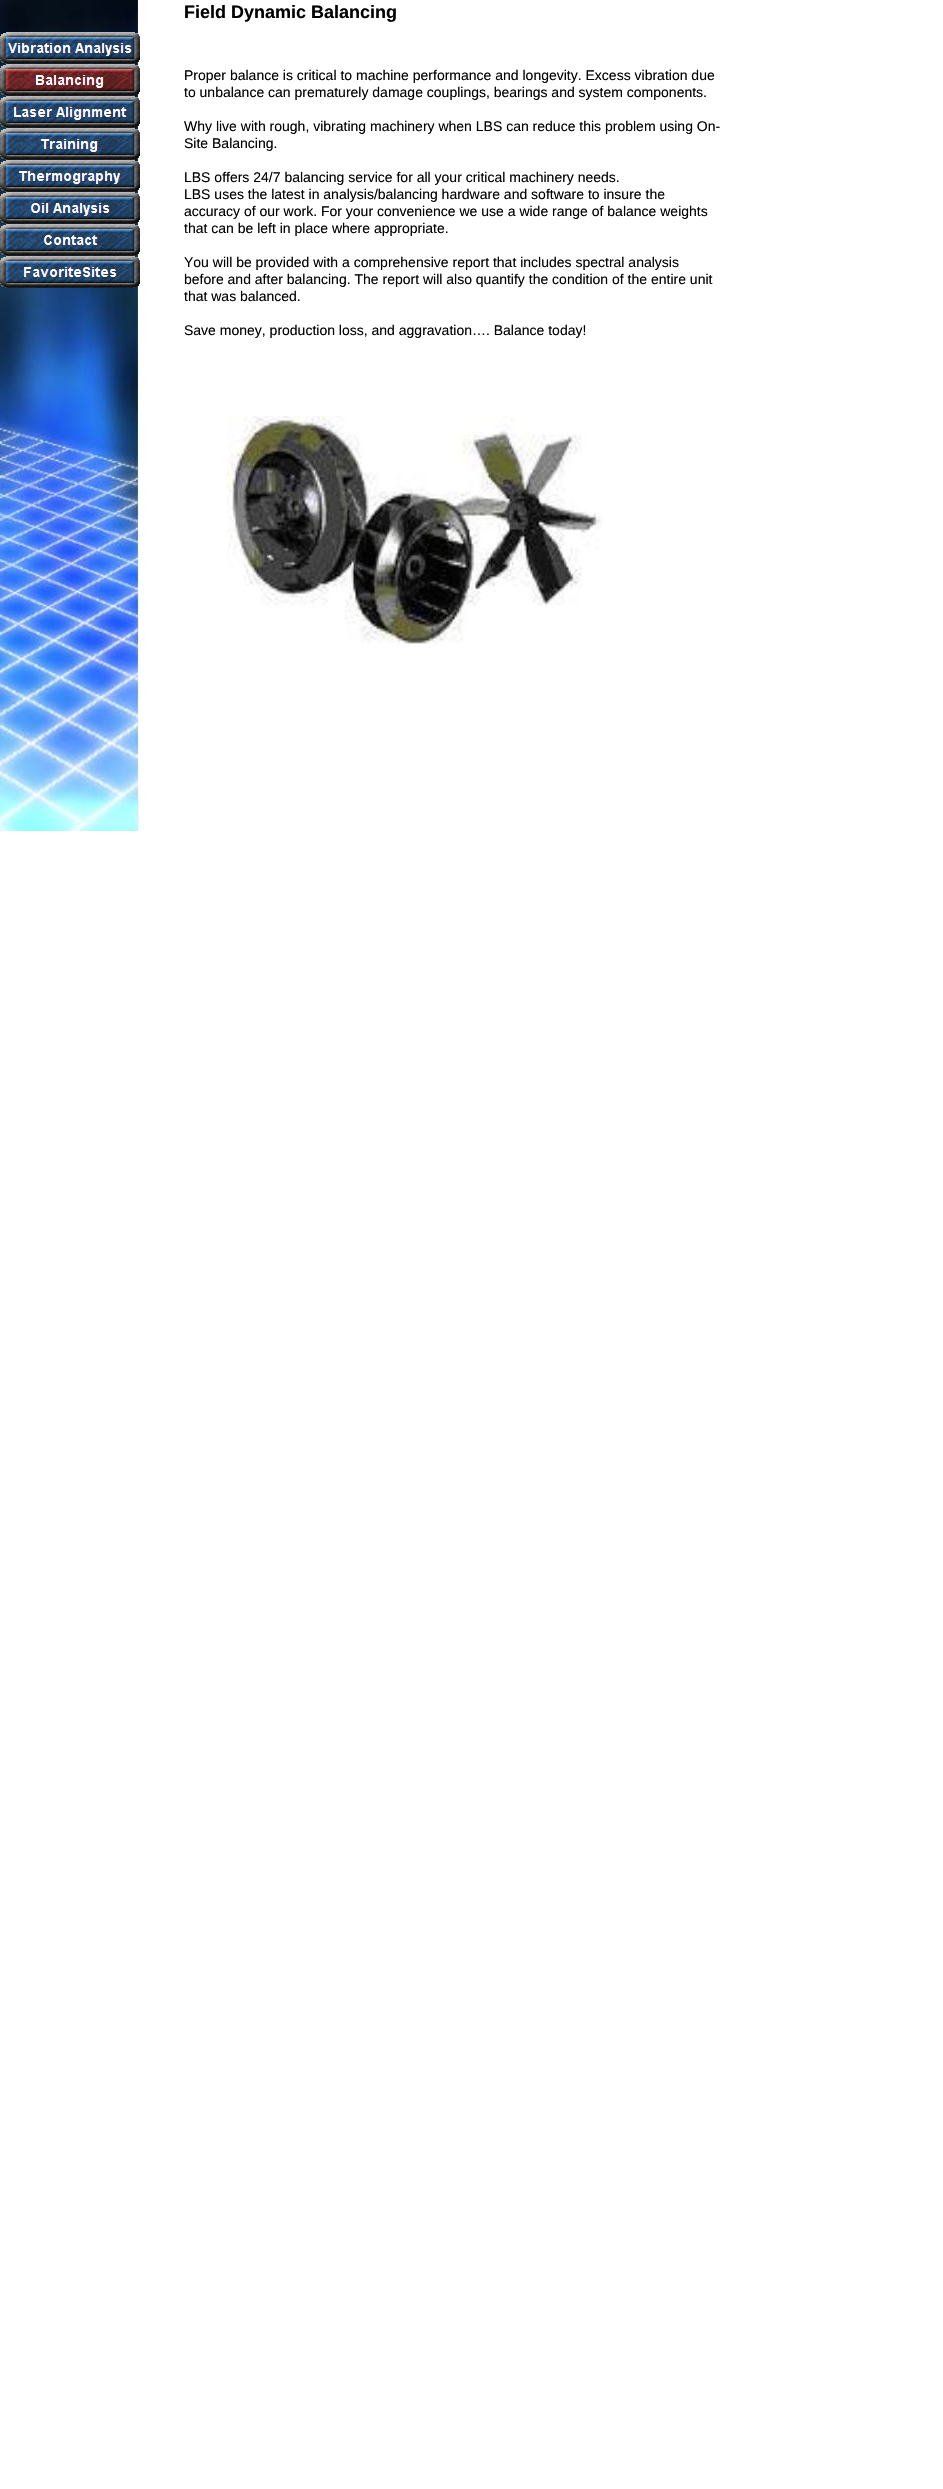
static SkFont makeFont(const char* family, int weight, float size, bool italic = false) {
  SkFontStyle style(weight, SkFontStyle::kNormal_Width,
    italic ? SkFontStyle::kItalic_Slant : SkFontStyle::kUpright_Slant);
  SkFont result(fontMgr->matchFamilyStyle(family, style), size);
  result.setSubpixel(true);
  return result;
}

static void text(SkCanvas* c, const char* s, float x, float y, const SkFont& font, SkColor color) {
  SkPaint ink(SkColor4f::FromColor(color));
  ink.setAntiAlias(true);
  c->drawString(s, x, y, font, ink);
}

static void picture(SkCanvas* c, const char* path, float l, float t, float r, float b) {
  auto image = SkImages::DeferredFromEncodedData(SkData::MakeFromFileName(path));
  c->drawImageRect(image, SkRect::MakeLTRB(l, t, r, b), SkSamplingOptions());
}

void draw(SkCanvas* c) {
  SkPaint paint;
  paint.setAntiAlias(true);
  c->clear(0xffffffff);
  picture(c, "img_01.png", 0, 0, 139, 831);
  SkFont face1 = makeFont("Liberation Sans", 700, 18);
  text(c, "Field Dynamic Balancing", 184, 18, face1, 0xff000000);
  SkFont face2 = makeFont("Liberation Sans", 400, 14);
  text(c, "Proper balance is critical to machine performance and longevity. Excess vibration due", 184, 80, face2, 0xff000000);
  text(c, "to unbalance can prematurely damage couplings, bearings and system components.", 184, 97, face2, 0xff000000);
  text(c, "Why live with rough, vibrating machinery when LBS can reduce this problem using On-", 184, 131, face2, 0xff000000);
  text(c, "Site Balancing.", 184, 148, face2, 0xff000000);
  text(c, "LBS offers 24/7 balancing service for all your critical machinery needs.", 184, 182, face2, 0xff000000);
  text(c, "LBS uses the latest in analysis/balancing hardware and software to insure the", 184, 199, face2, 0xff000000);
  text(c, "accuracy of our work. For your convenience we use a wide range of balance weights", 184, 216, face2, 0xff000000);
  text(c, "that can be left in place where appropriate.", 184, 233, face2, 0xff000000);
  text(c, "You will be provided with a comprehensive report that includes spectral analysis", 184, 267, face2, 0xff000000);
  text(c, "before and after balancing. The report will also quantify the condition of the entire unit", 184, 284, face2, 0xff000000);
  text(c, "that was balanced.", 184, 301, face2, 0xff000000);
  text(c, "Save money, production loss, and aggravation…. Balance today!", 184, 335, face2, 0xff000000);
  picture(c, "img_02.png", 0, 32, 140, 64);
  picture(c, "img_03.png", 0, 64, 140, 96);
  picture(c, "img_04.png", 0, 96, 140, 128);
  picture(c, "img_05.png", 0, 128, 140, 160);
  picture(c, "img_06.png", 0, 160, 140, 192);
  picture(c, "img_07.png", 0, 192, 140, 224);
  picture(c, "img_08.png", 0, 224, 140, 256);
  picture(c, "img_09.png", 0, 256, 140, 288);
  picture(c, "img_10.png", 227, 416, 603, 648);
}
